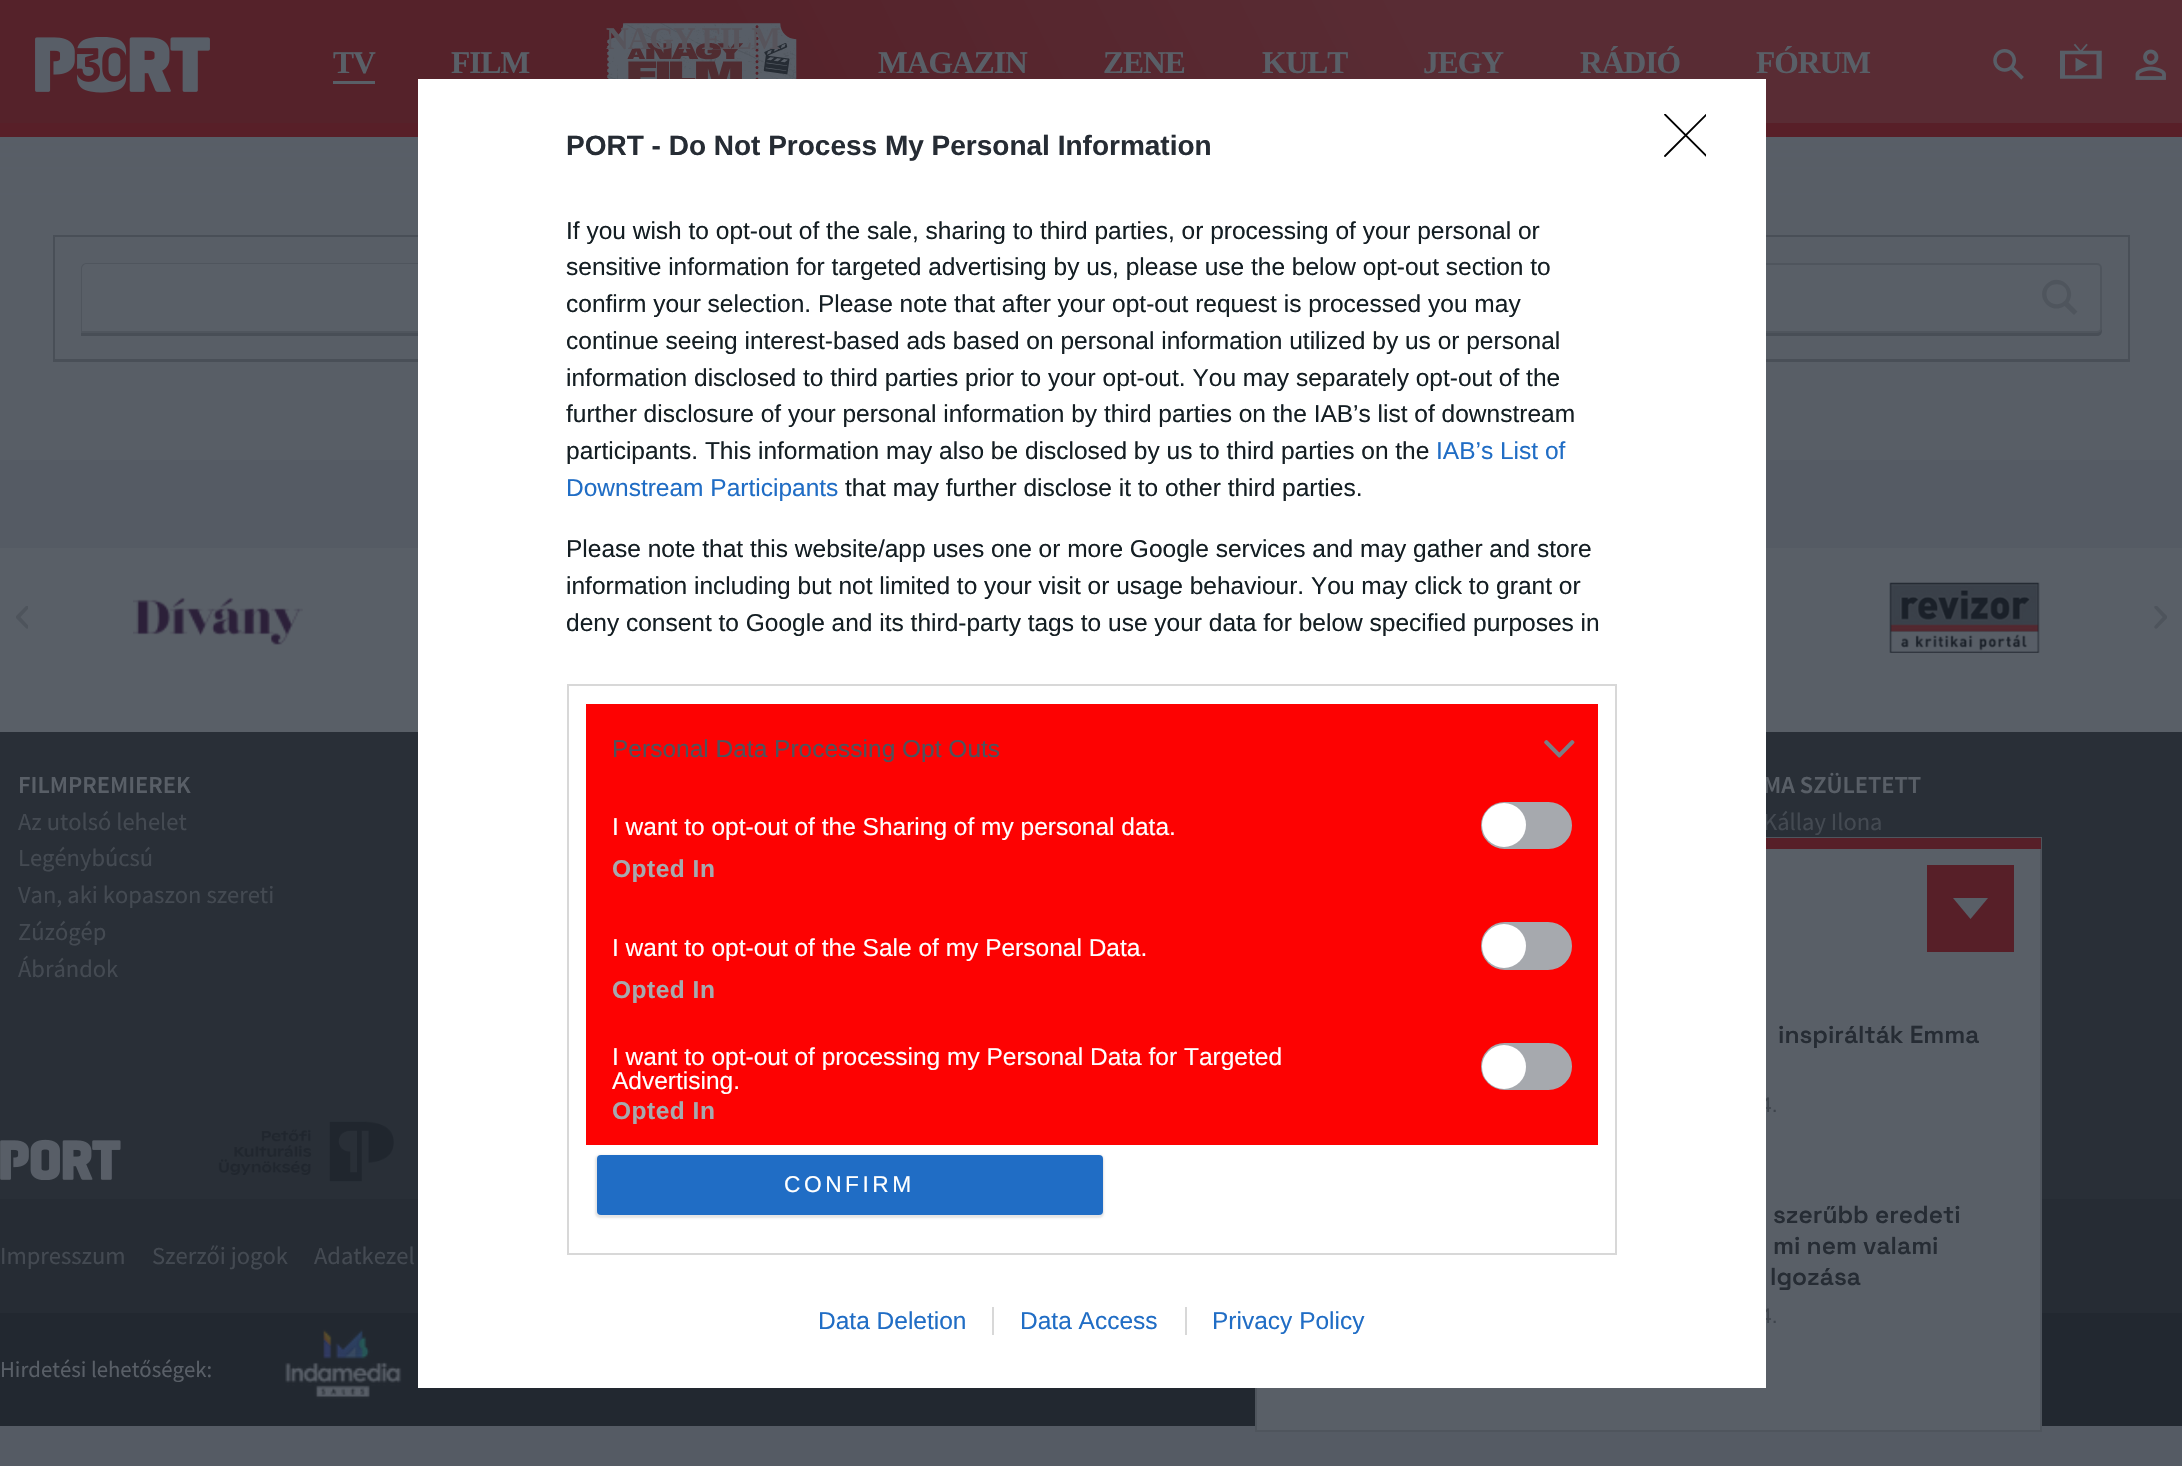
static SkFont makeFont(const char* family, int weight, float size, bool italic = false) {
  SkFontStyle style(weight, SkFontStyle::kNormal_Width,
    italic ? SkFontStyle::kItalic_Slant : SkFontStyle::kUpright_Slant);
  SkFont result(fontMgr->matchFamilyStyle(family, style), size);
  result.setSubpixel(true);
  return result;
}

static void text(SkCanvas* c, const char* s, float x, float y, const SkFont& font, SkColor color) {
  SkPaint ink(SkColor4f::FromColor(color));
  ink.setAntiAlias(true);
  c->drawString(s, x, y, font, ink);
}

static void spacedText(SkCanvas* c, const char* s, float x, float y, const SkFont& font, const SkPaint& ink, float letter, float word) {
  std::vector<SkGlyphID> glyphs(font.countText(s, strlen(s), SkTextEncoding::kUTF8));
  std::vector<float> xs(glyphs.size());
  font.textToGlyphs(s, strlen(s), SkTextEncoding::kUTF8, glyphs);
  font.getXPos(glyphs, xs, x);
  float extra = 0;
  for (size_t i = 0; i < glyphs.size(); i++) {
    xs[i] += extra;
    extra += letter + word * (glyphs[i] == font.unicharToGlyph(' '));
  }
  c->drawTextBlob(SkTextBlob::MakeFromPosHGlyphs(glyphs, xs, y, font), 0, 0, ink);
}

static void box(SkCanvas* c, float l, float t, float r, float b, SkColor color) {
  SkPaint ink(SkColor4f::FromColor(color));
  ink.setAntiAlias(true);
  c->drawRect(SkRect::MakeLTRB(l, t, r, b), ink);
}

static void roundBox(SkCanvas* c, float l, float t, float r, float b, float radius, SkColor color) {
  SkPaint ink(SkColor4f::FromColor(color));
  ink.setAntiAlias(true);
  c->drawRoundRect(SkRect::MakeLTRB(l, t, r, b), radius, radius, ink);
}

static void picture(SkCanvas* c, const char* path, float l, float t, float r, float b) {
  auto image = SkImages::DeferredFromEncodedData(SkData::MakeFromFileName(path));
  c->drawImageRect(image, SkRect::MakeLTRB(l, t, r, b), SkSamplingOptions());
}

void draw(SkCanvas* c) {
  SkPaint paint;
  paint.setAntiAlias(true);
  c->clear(0xff555b64);
  {
    const SkColor colors[] = {0xff592c34, 0xff55222a};
    const float stops[] = {0.34f, 0.66f};
    const SkPoint ends[] = {{1982, -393}, {200, 515}};
    paint.setShader(SkGradientShader::MakeLinear(ends, colors, stops, 2, SkTileMode::kClamp));
    paint.setAlpha(255);
  }
  c->drawRect(SkRect::MakeLTRB(0, 0, 2182, 123), paint);
  picture(c, "img_01.png", 35, 37, 210, 93);
  picture(c, "img_02.png", 607, 23, 797, 79);
  SkFont face1 = makeFont("Liberation Serif", 700, 31.5f);
  paint.setShader(nullptr);
  paint.setColor(0xff57545b);
  spacedText(c, "NAGY FILM", 606, 49, face1, paint, -1, 0);
  box(c, 333, 81, 375, 84, 0xff595f67);
  paint.setColor(0xff595f67);
  spacedText(c, "TV", 333, 73, face1, paint, -1, 0);
  spacedText(c, "FILM", 451, 73, face1, paint, -1, 0);
  spacedText(c, "MAGAZIN", 878, 73, face1, paint, -1, 0);
  spacedText(c, "ZENE", 1103, 73, face1, paint, -1, 0);
  spacedText(c, "KULT", 1262, 73, face1, paint, -1, 0);
  spacedText(c, "JEGY", 1423, 73, face1, paint, -1, 0);
  spacedText(c, "RÁDIÓ", 1580, 73, face1, paint, -1, 0);
  spacedText(c, "FÓRUM", 1756, 73, face1, paint, -1, 0);
  picture(c, "img_03.png", 1993, 49, 2024, 80);
  picture(c, "img_04.png", 2060, 43, 2102, 79);
  picture(c, "img_05.png", 2135, 49, 2166, 80);
  picture(c, "img_06.png", 0, 137, 2182, 460);
  box(c, 0, 123, 2182, 137, 0xff581f28);
  paint.setStyle(SkPaint::kStroke_Style);
  paint.setStrokeWidth(2);
  paint.setColor(0xff494f57);
  c->drawRect(SkRect::MakeLTRB(54, 236, 2129, 361), paint);
  box(c, 54, 359, 2128, 360, 0xff494f57);
  paint.setStyle(SkPaint::kFill_Style);
  paint.setColor(0xff484e56);
  c->drawPath(SkPathBuilder().moveTo(81, 332).lineTo(81, 336).lineTo(543, 336).lineTo(543, 271).lineTo(542, 269).lineTo(542, 332).close().detach(), paint);
  paint.setStyle(SkPaint::kStroke_Style);
  paint.setColor(0xff4f555d);
  c->drawPath(SkPathBuilder().moveTo(86, 264).lineTo(538, 264).cubicTo(540, 264, 542, 266, 542, 268).lineTo(542, 332).lineTo(82, 332).lineTo(82, 268).cubicTo(82, 266, 84, 264, 86, 264).close().detach(), paint);
  paint.setStyle(SkPaint::kFill_Style);
  paint.setColor(0xff595f67);
  c->drawPath(SkPathBuilder().moveTo(87, 264).lineTo(476, 264).lineTo(476, 331).lineTo(82, 331).lineTo(82, 269).cubicTo(82, 266, 84, 264, 87, 264).close().detach(), paint);
  paint.setColor(0xff484e56);
  c->drawPath(SkPathBuilder().moveTo(1365, 327).lineTo(1365, 331).cubicTo(1365, 334, 1367, 336, 1370, 336).lineTo(2097, 336).cubicTo(2100, 336, 2102, 334, 2102, 331).lineTo(2102, 269).lineTo(2102, 327).cubicTo(2102, 330, 2099, 332, 2096, 332).lineTo(1370, 332).cubicTo(1367, 332, 1365, 330, 1365, 327).close().detach(), paint);
  paint.setColor(0xff595f67);
  c->drawRoundRect(SkRect::MakeLTRB(1366, 264, 2101, 332), 4, 4, paint);
  paint.setStyle(SkPaint::kStroke_Style);
  paint.setColor(0xff4f555d);
  c->drawRoundRect(SkRect::MakeLTRB(1366, 264, 2101, 332), 4, 4, paint);
  paint.setStyle(SkPaint::kFill_Style);
  c->drawPath(SkPathBuilder().moveTo(2077.5f, 311.5f).lineTo(2068.5f, 302.5f).cubicTo(2078.5f, 288.5f, 2059, 271.5f, 2046.5f, 284).cubicTo(2034, 296.5f, 2050.5f, 315.5f, 2064.5f, 306).lineTo(2074, 315).close().moveTo(2046.5f, 294).cubicTo(2046.5f, 281, 2067, 281, 2067, 294).cubicTo(2067, 307.5f, 2046.5f, 307.5f, 2046.5f, 294).close().detach(), paint);
  box(c, 0, 732, 2182, 1199, 0xff292f37);
  box(c, 0, 1199, 2182, 1313, 0xff262c34);
  box(c, 0, 1313, 2182, 1426, 0xff222830);
  box(c, 1257, 849, 2040, 1430, 0xff595f67);
  paint.setStyle(SkPaint::kStroke_Style);
  c->drawRect(SkRect::MakeLTRB(1256, 838, 2041, 1431), paint);
  box(c, 1766, 838, 2041, 849, 0xff571f28);
  box(c, 1927, 865, 2014, 952, 0xff571f28);
  paint.setStyle(SkPaint::kFill_Style);
  paint.setColor(0xff595f67);
  c->drawPath(SkPathBuilder().moveTo(1953, 898).lineTo(1988, 898).lineTo(1970.5f, 919).close().detach(), paint);
  SkFont face2 = makeFont("Space Grotesk", 600, 24.5f);
  text(c, "inspirálták Emma", 1778, 1043, face2, 0xff262c34);
  SkFont face3 = makeFont("Liberation Sans", 400, 21);
  text(c, "4.", 1760, 1112, face3, 0xff3e444c);
  text(c, "szerűbb eredeti", 1773, 1223, face2, 0xff262c34);
  text(c, "mi nem valami", 1773, 1254, face2, 0xff262c34);
  text(c, "lgozása", 1770, 1285, face2, 0xff262c34);
  text(c, "4.", 1760, 1323, face3, 0xff3e444c);
  box(c, 0, 548, 2182, 732, 0xff595f67);
  SkFont face4 = makeFont("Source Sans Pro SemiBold", 600, 24.5f);
  text(c, "MA SZÜLETETT", 1763, 793, face4, 0xff595f67);
  SkFont face5 = makeFont("Source Sans Pro", 400, 24.5f);
  text(c, "Kállay Ilona", 1763, 830, face5, 0xff444a52);
  box(c, 418, 79, 1766, 1388, 0xffffffff);
  SkFont face6 = makeFont("Liberation Sans", 700, 28);
  text(c, "PORT - Do Not Process My Personal Information", 566, 155, face6, 0xff262c34);
  SkFont face7 = makeFont("Liberation Sans", 400, 24.5f);
  text(c, "If you wish to opt-out of the sale, sharing to third parties, or processing of your personal or", 566, 239, face7, 0xff141e23);
  text(c, "sensitive information for targeted advertising by us, please use the below opt-out section to", 566, 275, face7, 0xff141e23);
  text(c, "confirm your selection. Please note that after your opt-out request is processed you may", 566, 312, face7, 0xff141e23);
  text(c, "continue seeing interest-based ads based on personal information utilized by us or personal", 566, 349, face7, 0xff141e23);
  text(c, "information disclosed to third parties prior to your opt-out. You may separately opt-out of the", 566, 386, face7, 0xff141e23);
  text(c, "further disclosure of your personal information by third parties on the IAB’s list of downstream", 566, 422, face7, 0xff141e23);
  text(c, "participants. This information may also be disclosed by us to third parties on the", 566, 459, face7, 0xff141e23);
  text(c, "IAB’s List of", 1436, 459, face7, 0xff206dc5);
  text(c, "Downstream Participants", 566, 496, face7, 0xff206dc5);
  text(c, "that may further disclose it to other third parties.", 845, 496, face7, 0xff141e23);
  text(c, "Please note that this website/app uses one or more Google services and may gather and store", 566, 557, face7, 0xff141e23);
  text(c, "information including but not limited to your visit or usage behaviour. You may click to grant or", 566, 594, face7, 0xff141e23);
  text(c, "deny consent to Google and its third-party tags to use your data for below specified purposes in", 566, 631, face7, 0xff141e23);
  paint.setStyle(SkPaint::kStroke_Style);
  paint.setColor(0xffd8d8d8);
  c->drawRect(SkRect::MakeLTRB(568, 685, 1616, 1254), paint);
  box(c, 586, 704, 1598, 1145, 0xfffd0202);
  text(c, "Personal Data Processing Opt Outs", 612, 757, face7, 0xff4d545d);
  picture(c, "img_07.png", 1544, 740, 1575, 758);
  text(c, "I want to opt-out of the Sharing of my personal data.", 612, 835, face7, 0xffffffff);
  paint.setStyle(SkPaint::kFill_Style);
  paint.setColor(0xffa6a9ae);
  c->drawRoundRect(SkRect::MakeLTRB(1482, 803, 1571, 848), 22.5f, 22.5f, paint);
  paint.setStyle(SkPaint::kStroke_Style);
  c->drawRoundRect(SkRect::MakeLTRB(1482, 803, 1571, 848), 22.5f, 22.5f, paint);
  paint.setStyle(SkPaint::kFill_Style);
  paint.setColor(0xffffffff);
  c->drawCircle(1504, 825, 22, paint);
  SkFont face8 = makeFont("Liberation Sans", 700, 24.5f);
  paint.setColor(0xffa6a9ae);
  spacedText(c, "Opted In", 612, 877, face8, paint, 0.5f, 0);
  text(c, "I want to opt-out of the Sale of my Personal Data.", 612, 956, face7, 0xffffffff);
  c->drawRoundRect(SkRect::MakeLTRB(1482, 923, 1571, 969), 23, 23, paint);
  paint.setStyle(SkPaint::kStroke_Style);
  c->drawRoundRect(SkRect::MakeLTRB(1482, 923, 1571, 969), 23, 23, paint);
  paint.setStyle(SkPaint::kFill_Style);
  paint.setColor(0xffffffff);
  c->drawCircle(1504, 946, 22, paint);
  paint.setColor(0xffa6a9ae);
  spacedText(c, "Opted In", 612, 998, face8, paint, 0.5f, 0);
  text(c, "I want to opt-out of processing my Personal Data for Targeted", 612, 1065, face7, 0xffffffff);
  text(c, "Advertising.", 612, 1089, face7, 0xffffffff);
  c->drawRoundRect(SkRect::MakeLTRB(1482, 1044, 1571, 1089), 22.5f, 22.5f, paint);
  paint.setStyle(SkPaint::kStroke_Style);
  c->drawRoundRect(SkRect::MakeLTRB(1482, 1044, 1571, 1089), 22.5f, 22.5f, paint);
  paint.setStyle(SkPaint::kFill_Style);
  paint.setColor(0xffffffff);
  c->drawCircle(1504, 1067, 22, paint);
  paint.setColor(0xffa6a9ae);
  spacedText(c, "Opted In", 612, 1119, face8, paint, 0.5f, 0);
  paint.setColor(0x1a000000);
  paint.setMaskFilter(SkMaskFilter::MakeBlur(kNormal_SkBlurStyle, 1));
  c->drawRoundRect(SkRect::MakeLTRB(595, 1155, 1104, 1218), 5, 5, paint);
  paint.setMaskFilter(nullptr);
  roundBox(c, 597, 1155, 1103, 1215, 4, 0xff206dc5);
  SkFont face9 = makeFont("Liberation Sans", 400, 22.75f);
  paint.setColor(0xffffffff);
  spacedText(c, "CONFIRM", 784, 1192, face9, paint, 3.5f, 0);
  c->save();
  c->clipRect(SkRect::MakeLTRB(1664, 114, 1706, 158));
  paint.setStyle(SkPaint::kStroke_Style);
  paint.setStrokeWidth(1.8f);
  paint.setStrokeCap(SkPaint::kRound_Cap);
  paint.setStrokeJoin(SkPaint::kRound_Join);
  paint.setColor(0xff000000);
  c->drawPath(SkPathBuilder().moveTo(1665, 114.5f).lineTo(1706.5f, 156).moveTo(1706.5f, 114.5f).lineTo(1665, 156).detach(), paint);
  c->restore();
  text(c, "Data Deletion", 818, 1329, face7, 0xff206dc5);
  text(c, "Data Access", 1020, 1329, face7, 0xff206dc5);
  box(c, 992, 1307, 994, 1335, 0xffd8d8d8);
  text(c, "Privacy Policy", 1212, 1329, face7, 0xff206dc5);
  box(c, 1185, 1307, 1187, 1335, 0xffd8d8d8);
  picture(c, "img_08.png", 133, 597, 303, 645);
  picture(c, "img_09.png", 1889, 582, 2040, 653);
  picture(c, "img_10.png", 16, 606, 28, 629);
  picture(c, "img_11.png", 2154, 606, 2167, 629);
  text(c, "FILMPREMIEREK", 18, 793, face4, 0xff595f67);
  text(c, "Az utolsó lehelet", 18, 830, face5, 0xff444a52);
  text(c, "Legénybúcsú", 18, 866, face5, 0xff444a52);
  text(c, "Van, aki kopaszon szereti", 18, 903, face5, 0xff444a52);
  text(c, "Zúzógép", 18, 940, face5, 0xff444a52);
  text(c, "Ábrándok", 18, 977, face5, 0xff444a52);
  picture(c, "img_12.png", 0, 1139, 121, 1180);
  picture(c, "img_13.png", 218, 1121, 394, 1182);
  text(c, "Impresszum", 0, 1264, face5, 0xff444a52);
  text(c, "Szerzői jogok", 152, 1264, face5, 0xff444a52);
  text(c, "Adatkezel", 314, 1264, face5, 0xff444a52);
  SkFont face10 = makeFont("Source Sans Pro", 400, 22.75f);
  text(c, "Hirdetési lehetőségek:", 0, 1377, face10, 0xff595f67);
  picture(c, "img_14.png", 285, 1329, 402, 1399);
}
